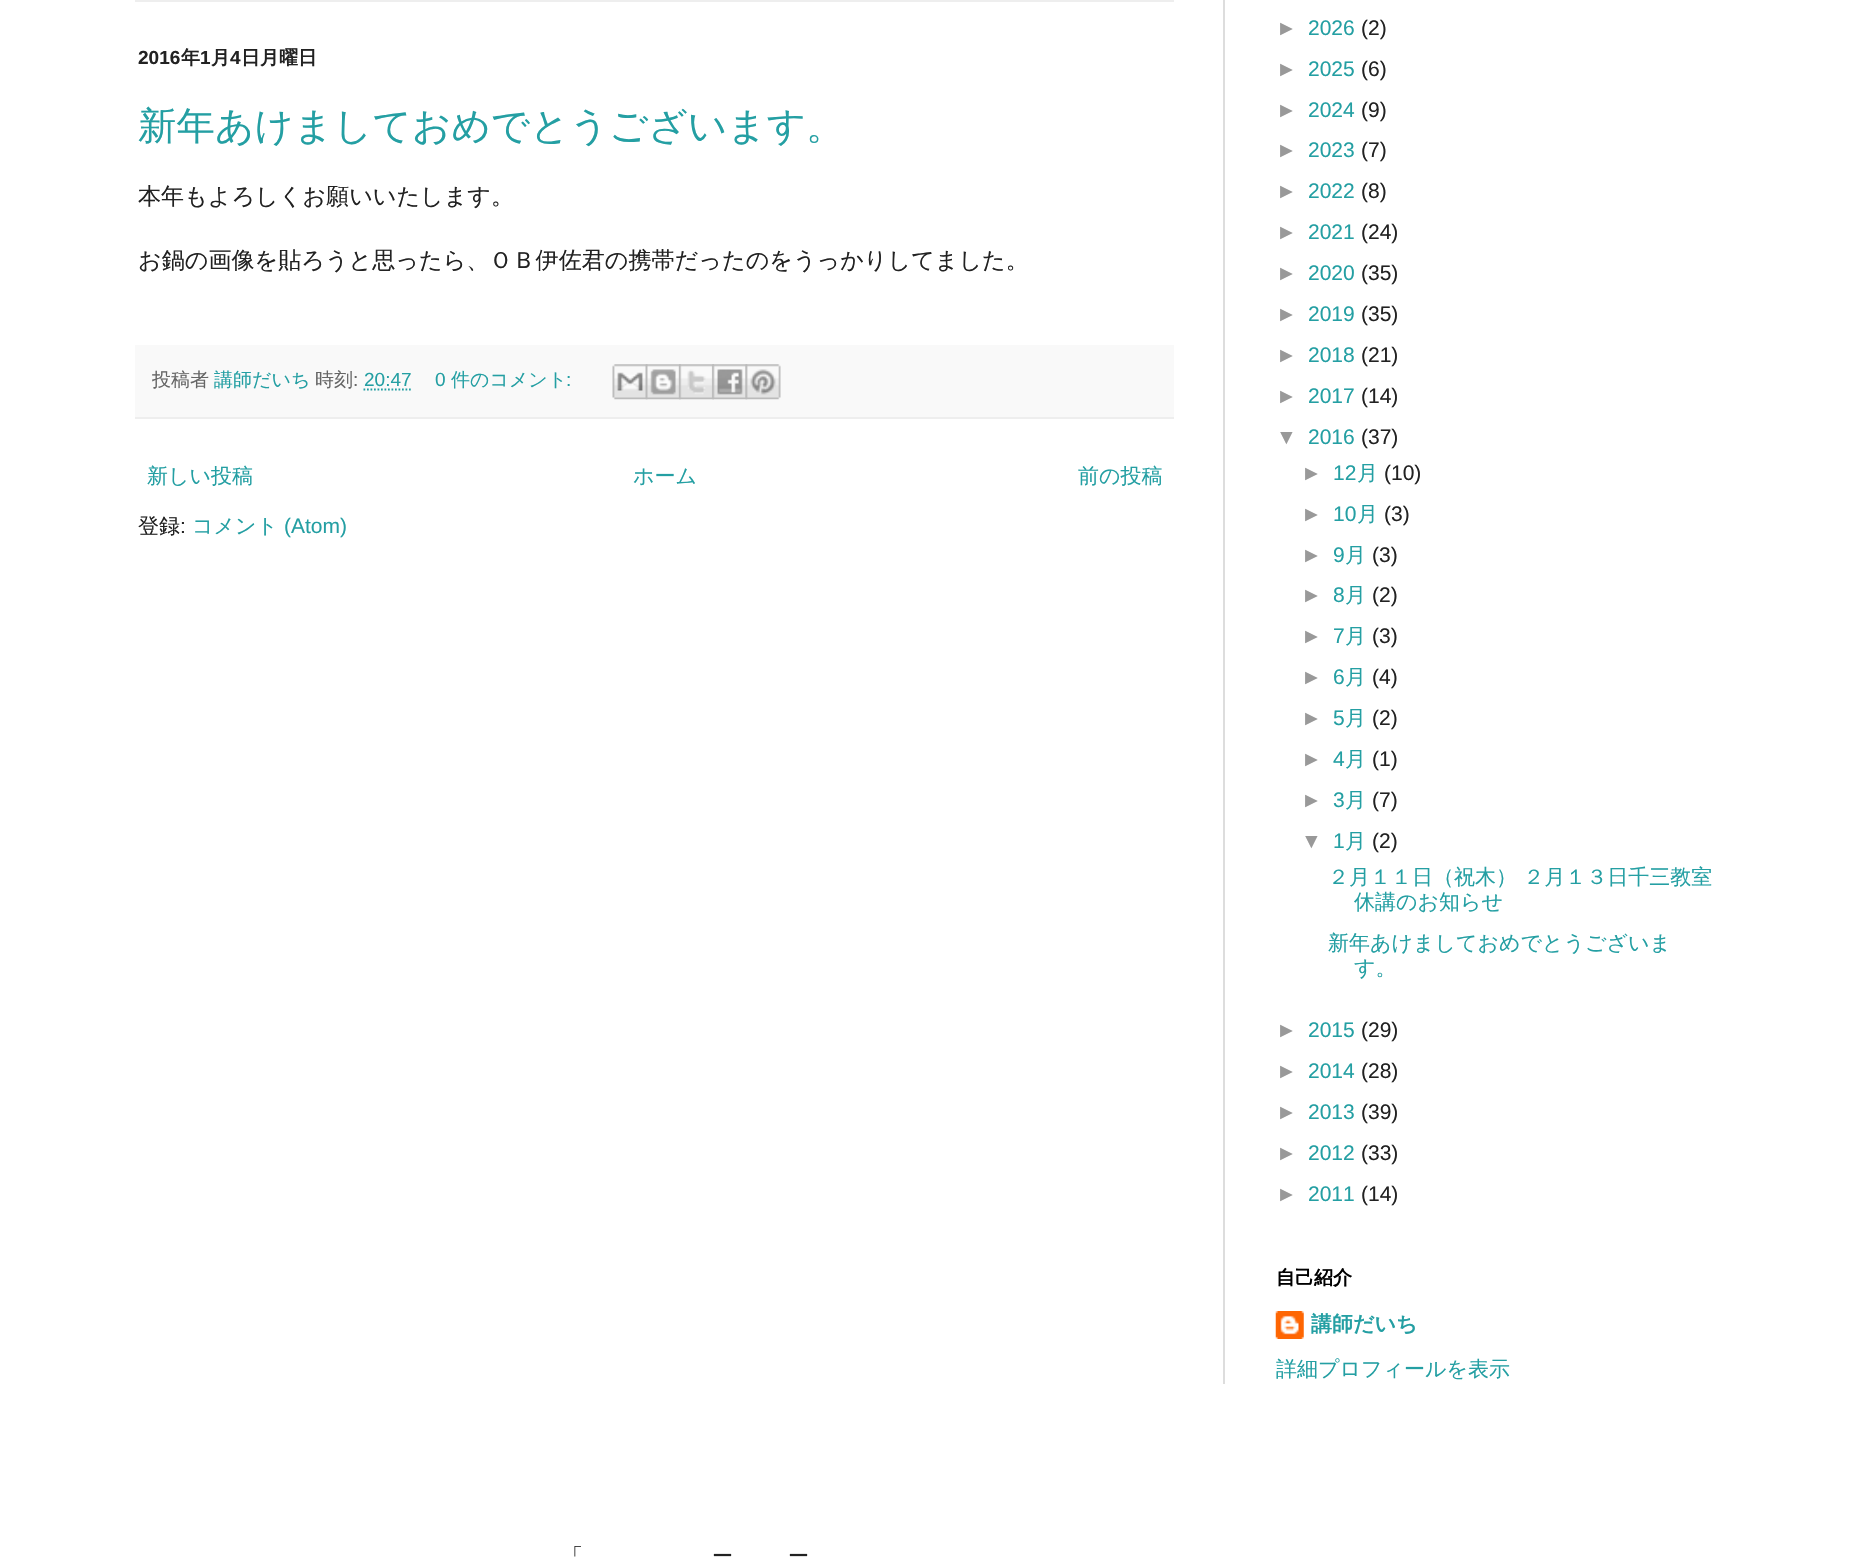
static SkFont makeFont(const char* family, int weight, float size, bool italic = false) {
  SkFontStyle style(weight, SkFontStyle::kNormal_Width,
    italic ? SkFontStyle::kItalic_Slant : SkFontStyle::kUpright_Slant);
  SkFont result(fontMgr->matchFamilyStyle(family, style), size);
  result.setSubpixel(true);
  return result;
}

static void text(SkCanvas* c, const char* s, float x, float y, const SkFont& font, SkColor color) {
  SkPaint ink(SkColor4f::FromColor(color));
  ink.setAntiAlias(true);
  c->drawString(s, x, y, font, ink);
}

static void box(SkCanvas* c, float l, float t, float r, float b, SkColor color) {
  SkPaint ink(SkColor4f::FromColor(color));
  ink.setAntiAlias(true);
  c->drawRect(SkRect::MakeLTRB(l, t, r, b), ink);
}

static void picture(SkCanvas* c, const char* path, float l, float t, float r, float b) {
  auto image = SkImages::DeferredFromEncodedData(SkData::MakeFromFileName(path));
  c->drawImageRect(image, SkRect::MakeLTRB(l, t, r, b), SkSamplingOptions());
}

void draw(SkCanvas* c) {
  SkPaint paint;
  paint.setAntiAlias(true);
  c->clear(0xffffffff);
  box(c, 1223, 0, 1225, 1384, 0xffdddddd);
  box(c, 135, 0, 1174, 2, 0xffeeeeee);
  SkFont face1 = makeFont("Liberation Sans", 700, 19);
  text(c, "2016", 138, 64, face1, 0xff222222);
  SkFont face2 = makeFont("WenQuanYi Zen Hei", 700, 19);
  text(c, "年", 181, 64, face2, 0xff222222);
  text(c, "1", 200, 64, face1, 0xff222222);
  text(c, "月", 211, 64, face2, 0xff222222);
  text(c, "4", 230, 64, face1, 0xff222222);
  text(c, "日月曜日", 241, 64, face2, 0xff222222);
  SkFont face3 = makeFont("WenQuanYi Zen Hei", 500, 38.5f);
  text(c, "新年あけましておめでとうございます。", 138, 139, face3, 0xff249fa3);
  SkFont face4 = makeFont("WenQuanYi Zen Hei", 500, 23.1f);
  text(c, "本年もよろしくお願いいたします。", 138, 204, face4, 0xff222222);
  text(c, "お鍋の画像を貼ろうと思ったら、ＯＢ伊佐君の携帯だったのをうっかりしてました。", 138, 268, face4, 0xff222222);
  box(c, 135, 345, 1174, 417, 0xfff9f9f9);
  box(c, 135, 417, 1174, 419, 0xffeeeeee);
  SkFont face5 = makeFont("WenQuanYi Zen Hei", 500, 19);
  text(c, "投稿者", 152, 386, face5, 0xff666666);
  text(c, "講師だいち", 214, 386, face5, 0xff249fa3);
  text(c, "時刻", 315, 386, face5, 0xff666666);
  SkFont face6 = makeFont("Liberation Sans", 400, 19);
  text(c, ":", 353, 386, face6, 0xff666666);
  text(c, "20:47", 364, 386, face6, 0xff249fa3);
  paint.setStyle(SkPaint::kStroke_Style);
  paint.setStrokeWidth(1.8f);
  paint.setColor(0xff249fa3);
  paint.setPathEffect(SkDashPathEffect::Make({{1.75f, 1.75f}}, 0));
  c->drawPath(SkPathBuilder().moveTo(363.5f, 389.5f).lineTo(411, 389.5f).detach(), paint);
  paint.setPathEffect(nullptr);
  text(c, "0", 435, 386, face6, 0xff249fa3);
  text(c, "件のコメント", 451, 386, face5, 0xff249fa3);
  text(c, ":", 566, 386, face6, 0xff249fa3);
  picture(c, "img_01.png", 612, 364, 648, 400);
  picture(c, "img_02.png", 645, 364, 681, 400);
  picture(c, "img_03.png", 679, 364, 714, 400);
  picture(c, "img_04.png", 712, 364, 748, 400);
  picture(c, "img_05.png", 745, 364, 781, 400);
  SkFont face7 = makeFont("WenQuanYi Zen Hei", 500, 21);
  text(c, "新しい投稿", 147, 483, face7, 0xff249fa3);
  text(c, "ホーム", 633, 483, face7, 0xff249fa3);
  text(c, "前の投稿", 1078, 483, face7, 0xff249fa3);
  text(c, "登録", 138, 533, face7, 0xff222222);
  SkFont face8 = makeFont("Liberation Sans", 400, 21);
  text(c, ":", 180, 533, face8, 0xff222222);
  text(c, "コメント", 192, 533, face7, 0xff249fa3);
  text(c, "(Atom)", 284, 533, face8, 0xff249fa3);
  text(c, "►", 1276, 35, face8, 0xff999999);
  text(c, "2026", 1308, 35, face8, 0xff249fa3);
  text(c, "(2)", 1361, 35, face8, 0xff222222);
  text(c, "►", 1276, 76, face8, 0xff999999);
  text(c, "2025", 1308, 76, face8, 0xff249fa3);
  text(c, "(6)", 1361, 76, face8, 0xff222222);
  text(c, "►", 1276, 117, face8, 0xff999999);
  text(c, "2024", 1308, 117, face8, 0xff249fa3);
  text(c, "(9)", 1361, 117, face8, 0xff222222);
  text(c, "►", 1276, 157, face8, 0xff999999);
  text(c, "2023", 1308, 157, face8, 0xff249fa3);
  text(c, "(7)", 1361, 157, face8, 0xff222222);
  text(c, "►", 1276, 198, face8, 0xff999999);
  text(c, "2022", 1308, 198, face8, 0xff249fa3);
  text(c, "(8)", 1361, 198, face8, 0xff222222);
  text(c, "►", 1276, 239, face8, 0xff999999);
  text(c, "2021", 1308, 239, face8, 0xff249fa3);
  text(c, "(24)", 1361, 239, face8, 0xff222222);
  text(c, "►", 1276, 280, face8, 0xff999999);
  text(c, "2020", 1308, 280, face8, 0xff249fa3);
  text(c, "(35)", 1361, 280, face8, 0xff222222);
  text(c, "►", 1276, 321, face8, 0xff999999);
  text(c, "2019", 1308, 321, face8, 0xff249fa3);
  text(c, "(35)", 1361, 321, face8, 0xff222222);
  text(c, "►", 1276, 362, face8, 0xff999999);
  text(c, "2018", 1308, 362, face8, 0xff249fa3);
  text(c, "(21)", 1361, 362, face8, 0xff222222);
  text(c, "►", 1276, 403, face8, 0xff999999);
  text(c, "2017", 1308, 403, face8, 0xff249fa3);
  text(c, "(14)", 1361, 403, face8, 0xff222222);
  text(c, "▼", 1276, 444, face8, 0xff999999);
  text(c, "2016", 1308, 444, face8, 0xff249fa3);
  text(c, "(37)", 1361, 444, face8, 0xff222222);
  text(c, "►", 1301, 480, face8, 0xff999999);
  text(c, "12", 1333, 480, face8, 0xff249fa3);
  text(c, "月", 1357, 480, face7, 0xff249fa3);
  text(c, "(10)", 1384, 480, face8, 0xff222222);
  text(c, "►", 1301, 521, face8, 0xff999999);
  text(c, "10", 1333, 521, face8, 0xff249fa3);
  text(c, "月", 1357, 521, face7, 0xff249fa3);
  text(c, "(3)", 1384, 521, face8, 0xff222222);
  text(c, "►", 1301, 562, face8, 0xff999999);
  text(c, "9", 1333, 562, face8, 0xff249fa3);
  text(c, "月", 1345, 562, face7, 0xff249fa3);
  text(c, "(3)", 1372, 562, face8, 0xff222222);
  text(c, "►", 1301, 602, face8, 0xff999999);
  text(c, "8", 1333, 602, face8, 0xff249fa3);
  text(c, "月", 1345, 602, face7, 0xff249fa3);
  text(c, "(2)", 1372, 602, face8, 0xff222222);
  text(c, "►", 1301, 643, face8, 0xff999999);
  text(c, "7", 1333, 643, face8, 0xff249fa3);
  text(c, "月", 1345, 643, face7, 0xff249fa3);
  text(c, "(3)", 1372, 643, face8, 0xff222222);
  text(c, "►", 1301, 684, face8, 0xff999999);
  text(c, "6", 1333, 684, face8, 0xff249fa3);
  text(c, "月", 1345, 684, face7, 0xff249fa3);
  text(c, "(4)", 1372, 684, face8, 0xff222222);
  text(c, "►", 1301, 725, face8, 0xff999999);
  text(c, "5", 1333, 725, face8, 0xff249fa3);
  text(c, "月", 1345, 725, face7, 0xff249fa3);
  text(c, "(2)", 1372, 725, face8, 0xff222222);
  text(c, "►", 1301, 766, face8, 0xff999999);
  text(c, "4", 1333, 766, face8, 0xff249fa3);
  text(c, "月", 1345, 766, face7, 0xff249fa3);
  text(c, "(1)", 1372, 766, face8, 0xff222222);
  text(c, "►", 1301, 807, face8, 0xff999999);
  text(c, "3", 1333, 807, face8, 0xff249fa3);
  text(c, "月", 1345, 807, face7, 0xff249fa3);
  text(c, "(7)", 1372, 807, face8, 0xff222222);
  text(c, "▼", 1301, 848, face8, 0xff999999);
  text(c, "1", 1333, 848, face8, 0xff249fa3);
  text(c, "月", 1345, 848, face7, 0xff249fa3);
  text(c, "(2)", 1372, 848, face8, 0xff222222);
  text(c, "２月１１日（祝木） ２月１３日千三教室", 1328, 884, face7, 0xff249fa3);
  text(c, "休講のお知らせ", 1354, 909, face7, 0xff249fa3);
  text(c, "新年あけましておめでとうございま", 1328, 950, face7, 0xff249fa3);
  text(c, "す。", 1354, 975, face7, 0xff249fa3);
  text(c, "►", 1276, 1037, face8, 0xff999999);
  text(c, "2015", 1308, 1037, face8, 0xff249fa3);
  text(c, "(29)", 1361, 1037, face8, 0xff222222);
  text(c, "►", 1276, 1078, face8, 0xff999999);
  text(c, "2014", 1308, 1078, face8, 0xff249fa3);
  text(c, "(28)", 1361, 1078, face8, 0xff222222);
  text(c, "►", 1276, 1119, face8, 0xff999999);
  text(c, "2013", 1308, 1119, face8, 0xff249fa3);
  text(c, "(39)", 1361, 1119, face8, 0xff222222);
  text(c, "►", 1276, 1160, face8, 0xff999999);
  text(c, "2012", 1308, 1160, face8, 0xff249fa3);
  text(c, "(33)", 1361, 1160, face8, 0xff222222);
  text(c, "►", 1276, 1201, face8, 0xff999999);
  text(c, "2011", 1308, 1201, face8, 0xff249fa3);
  text(c, "(14)", 1361, 1201, face8, 0xff222222);
  text(c, "自己紹介", 1276, 1284, face2, 0xff000000);
  picture(c, "img_06.png", 1275, 1311, 1304, 1339);
  SkFont face9 = makeFont("WenQuanYi Zen Hei", 700, 21);
  text(c, "講師だいち", 1311, 1331, face9, 0xff249fa3);
  text(c, "詳細プロフィールを表示", 1276, 1376, face7, 0xff249fa3);
  text(c, "「", 562, 1563, face7, 0xff222222);
  text(c, "ー", 712, 1563, face7, 0xff222222);
  text(c, "ー", 788, 1563, face7, 0xff222222);
}
